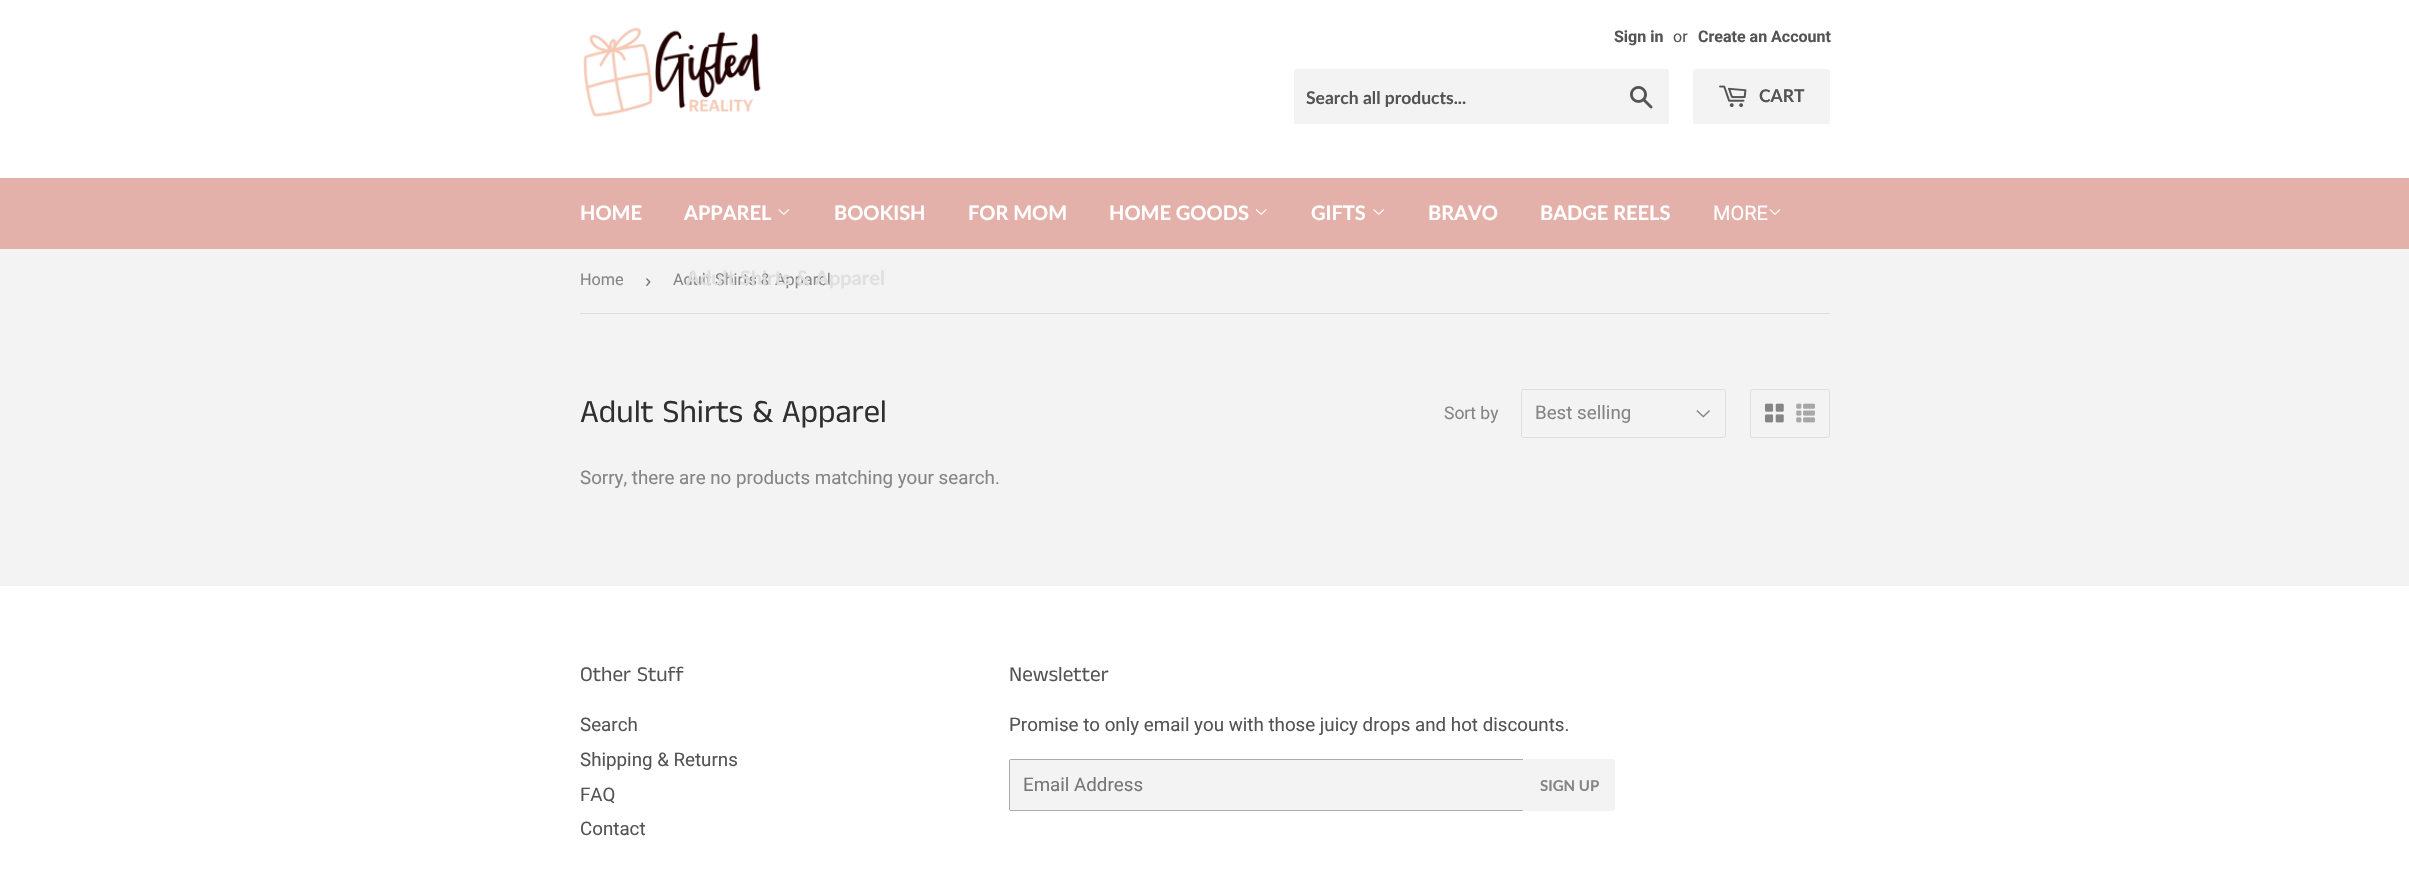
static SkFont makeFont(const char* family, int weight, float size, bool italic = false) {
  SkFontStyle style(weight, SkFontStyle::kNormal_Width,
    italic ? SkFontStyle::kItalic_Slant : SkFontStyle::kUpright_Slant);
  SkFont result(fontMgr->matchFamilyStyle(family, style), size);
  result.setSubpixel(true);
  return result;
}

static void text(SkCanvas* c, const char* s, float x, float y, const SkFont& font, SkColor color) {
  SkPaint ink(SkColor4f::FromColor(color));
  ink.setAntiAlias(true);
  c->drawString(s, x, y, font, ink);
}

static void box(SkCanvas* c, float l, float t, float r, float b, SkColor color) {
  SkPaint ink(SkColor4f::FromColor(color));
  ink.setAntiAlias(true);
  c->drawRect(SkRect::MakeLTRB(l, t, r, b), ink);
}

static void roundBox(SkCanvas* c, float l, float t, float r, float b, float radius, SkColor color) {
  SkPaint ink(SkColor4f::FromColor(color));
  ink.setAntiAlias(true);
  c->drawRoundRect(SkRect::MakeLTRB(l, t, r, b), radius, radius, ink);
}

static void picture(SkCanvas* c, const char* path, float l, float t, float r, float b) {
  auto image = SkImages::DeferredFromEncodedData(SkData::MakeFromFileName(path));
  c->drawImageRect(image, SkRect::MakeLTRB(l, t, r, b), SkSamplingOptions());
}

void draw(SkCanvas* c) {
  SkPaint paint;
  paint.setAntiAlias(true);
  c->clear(0xfff3f3f3);
  box(c, 0, 0, 2409, 178, 0xffffffff);
  picture(c, "img_01.png", 583, 27, 761, 117);
  SkFont face1 = makeFont("Roboto", 700, 16);
  text(c, "Sign in", 1614, 42, face1, 0xff545454);
  SkFont face2 = makeFont("Roboto", 400, 16);
  text(c, "or", 1673, 42, face2, 0xff545454);
  text(c, "Create an Account", 1698, 42, face1, 0xff545454);
  roundBox(c, 1294, 69, 1669, 124, 2.5f, 0xfff3f3f3);
  SkFont face3 = makeFont("Lato", 700, 17.5f);
  text(c, "Search all products...", 1306, 104, face3, 0xff545454);
  picture(c, "img_02.png", 1630, 86, 1653, 109);
  roundBox(c, 1693, 69, 1830, 124, 2.5f, 0xfff3f3f3);
  picture(c, "img_03.png", 1719, 85, 1747, 108);
  text(c, "CART", 1759, 102, face3, 0xff545454);
  box(c, 0, 178, 2409, 249, 0xffe3b1a9);
  SkFont face4 = makeFont("Lato", 700, 20);
  text(c, "HOME", 580, 220, face4, 0xffffffff);
  text(c, "APPAREL", 684, 220, face4, 0xffffffff);
  picture(c, "img_04.png", 778, 209, 789, 215);
  SkFont face5 = makeFont("Roboto", 400, 16.25f);
  text(c, "Adult Shirts & Apparel", 673, 285, face5, 0xff858585);
  text(c, "Adult Shirts & Apparel", 686, 285, face4, 0xffdfdfdf);
  text(c, "BOOKISH", 834, 220, face4, 0xffffffff);
  text(c, "FOR MOM", 968, 220, face4, 0xffffffff);
  text(c, "HOME GOODS", 1109, 220, face4, 0xffffffff);
  picture(c, "img_05.png", 1256, 209, 1267, 215);
  text(c, "GIFTS", 1311, 220, face4, 0xffffffff);
  picture(c, "img_04.png", 1373, 209, 1384, 215);
  text(c, "BRAVO", 1428, 220, face4, 0xffffffff);
  text(c, "BADGE REELS", 1540, 220, face4, 0xffffffff);
  SkFont face6 = makeFont("Roboto", 400, 20);
  text(c, "MORE", 1713, 220, face6, 0xffffffff);
  picture(c, "img_06.png", 1769, 209, 1781, 215);
  box(c, 580, 313, 1830, 314, 0xffdedede);
  text(c, "Home", 580, 285, face5, 0xff858585);
  SkFont face7 = makeFont("Liberation Sans", 400, 18.75f);
  text(c, "›", 645, 287, face7, 0xff767676);
  SkFont face8 = makeFont("Anek Tamil", 400, 32.5f);
  text(c, "Adult Shirts & Apparel", 580, 422, face8, 0xff2f2f2f);
  SkFont face9 = makeFont("Roboto", 400, 17.5f);
  text(c, "Sort by", 1444, 419, face9, 0xff858585);
  picture(c, "img_07.png", 1696, 410, 1710, 418);
  paint.setStyle(SkPaint::kStroke_Style);
  paint.setStrokeWidth(1);
  paint.setColor(0xffdedede);
  c->drawRoundRect(SkRect::MakeLTRB(1521.5f, 389.5f, 1725.5f, 437.5f), 2, 2, paint);
  SkFont face10 = makeFont("Roboto", 400, 18.75f);
  text(c, "Best selling", 1535, 419, face10, 0xff858585);
  c->drawRoundRect(SkRect::MakeLTRB(1750.5f, 389.5f, 1829.5f, 437.5f), 2, 2, paint);
  picture(c, "img_08.png", 1765, 403, 1784, 423);
  picture(c, "img_09.png", 1796, 403, 1815, 423);
  text(c, "Sorry, there are no products matching your search.", 580, 484, face10, 0xff858585);
  box(c, 0, 586, 2409, 872, 0xffffffff);
  SkFont face11 = makeFont("Anek Tamil", 400, 21.25f);
  text(c, "Other Stuff", 580, 681, face11, 0xff545454);
  text(c, "Search", 580, 731, face10, 0xff545454);
  text(c, "Shipping & Returns", 580, 766, face10, 0xff545454);
  text(c, "FAQ", 580, 801, face10, 0xff545454);
  text(c, "Contact", 580, 835, face10, 0xff545454);
  text(c, "Newsletter", 1009, 681, face11, 0xff545454);
  text(c, "Promise to only email you with those juicy drops and hot discounts.", 1009, 731, face10, 0xff545454);
  roundBox(c, 1009, 759, 1524, 811, 2.5f, 0xfff3f3f3);
  box(c, 1010, 759, 1523, 760, 0xffababab);
  box(c, 1010, 810, 1523, 811, 0xffababab);
  box(c, 1009, 760, 1010, 810, 0xffababab);
  text(c, "Email Address", 1023, 791, face10, 0xff767676);
  paint.setStyle(SkPaint::kFill_Style);
  paint.setColor(0xfff3f3f3);
  c->drawPath(SkPathBuilder().moveTo(1524, 759).lineTo(1612.5f, 759).cubicTo(1614, 759, 1615, 760, 1615, 761.5f).lineTo(1615, 808.5f).cubicTo(1615, 810, 1614, 811, 1612.5f, 811).lineTo(1524, 811).close().detach(), paint);
  SkFont face12 = makeFont("Lato", 700, 15);
  text(c, "SIGN UP", 1540, 791, face12, 0xff858585);
}
